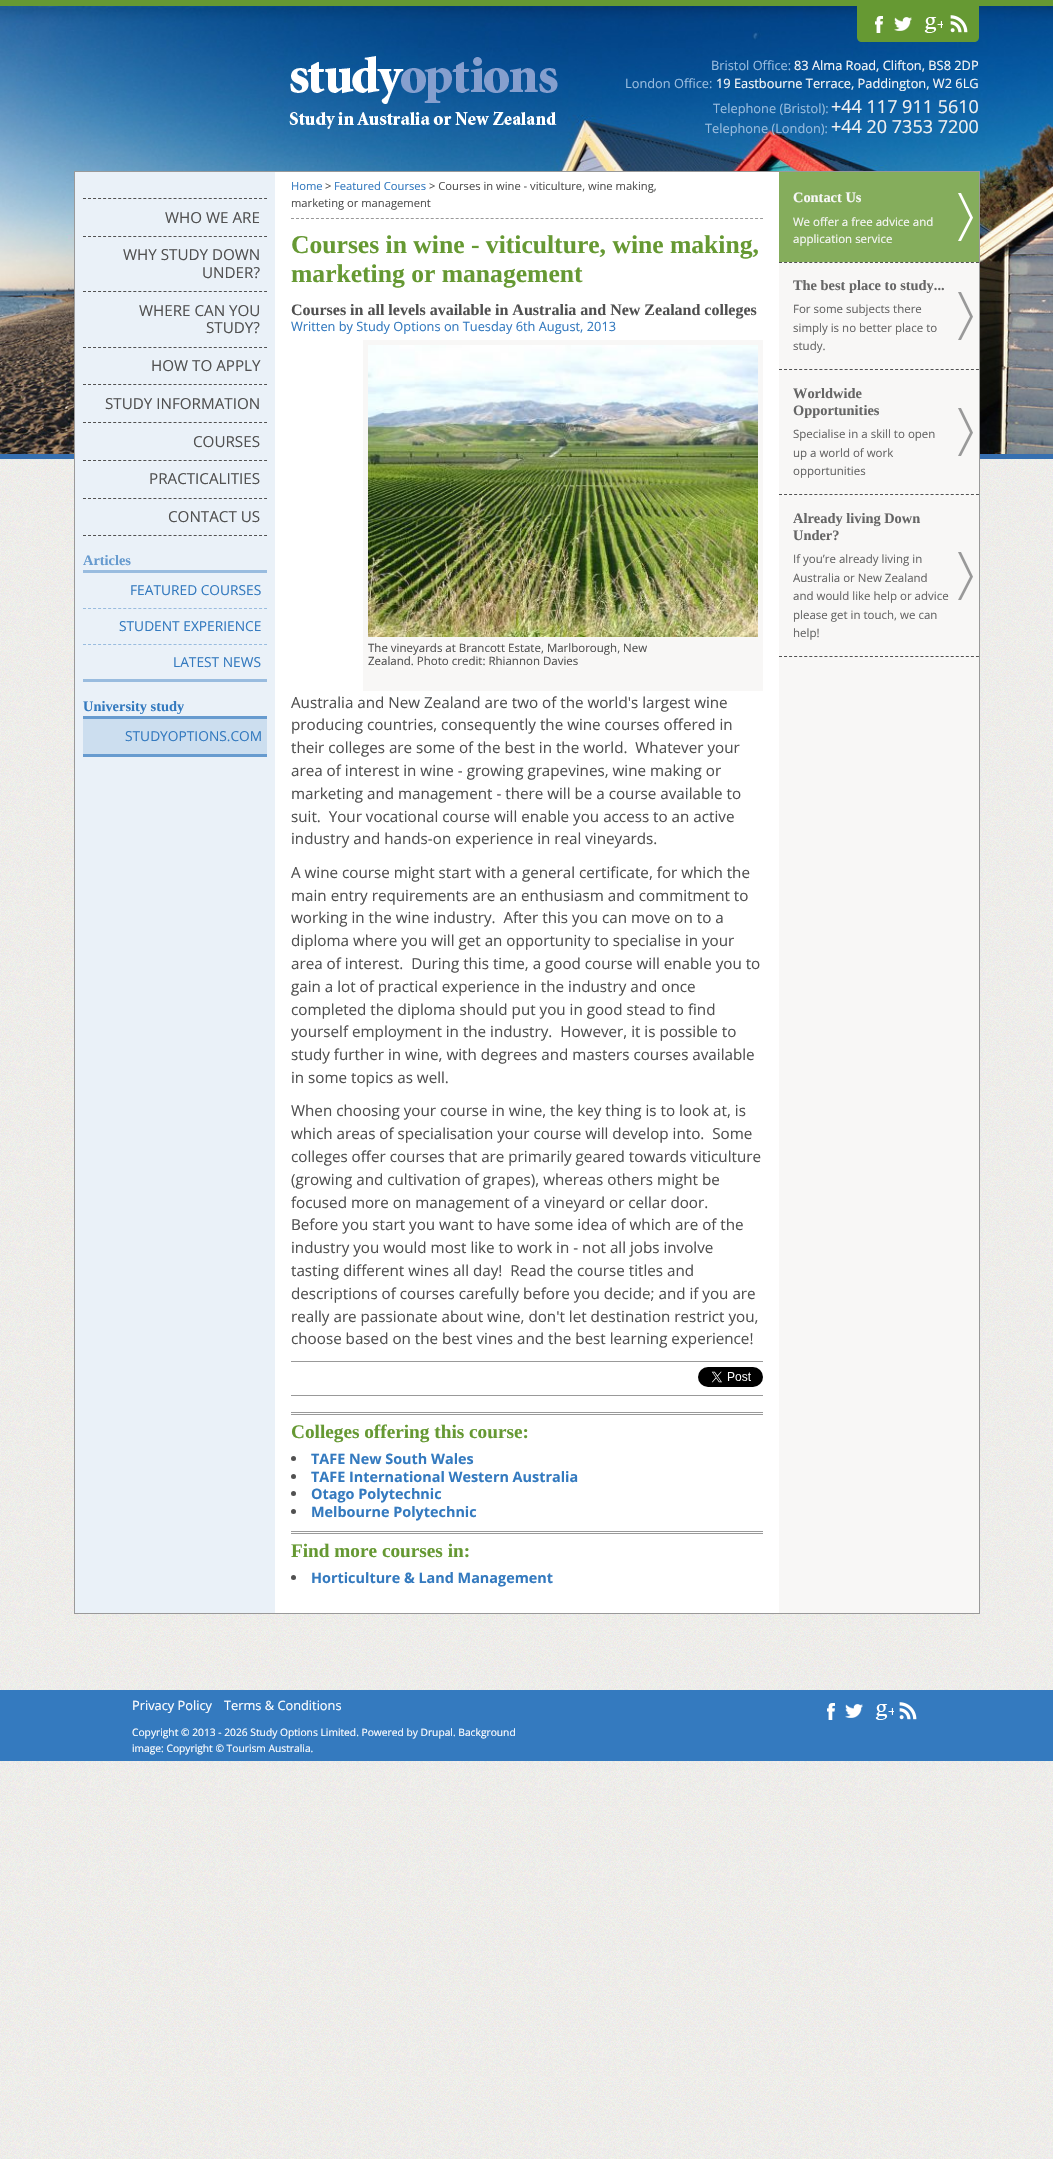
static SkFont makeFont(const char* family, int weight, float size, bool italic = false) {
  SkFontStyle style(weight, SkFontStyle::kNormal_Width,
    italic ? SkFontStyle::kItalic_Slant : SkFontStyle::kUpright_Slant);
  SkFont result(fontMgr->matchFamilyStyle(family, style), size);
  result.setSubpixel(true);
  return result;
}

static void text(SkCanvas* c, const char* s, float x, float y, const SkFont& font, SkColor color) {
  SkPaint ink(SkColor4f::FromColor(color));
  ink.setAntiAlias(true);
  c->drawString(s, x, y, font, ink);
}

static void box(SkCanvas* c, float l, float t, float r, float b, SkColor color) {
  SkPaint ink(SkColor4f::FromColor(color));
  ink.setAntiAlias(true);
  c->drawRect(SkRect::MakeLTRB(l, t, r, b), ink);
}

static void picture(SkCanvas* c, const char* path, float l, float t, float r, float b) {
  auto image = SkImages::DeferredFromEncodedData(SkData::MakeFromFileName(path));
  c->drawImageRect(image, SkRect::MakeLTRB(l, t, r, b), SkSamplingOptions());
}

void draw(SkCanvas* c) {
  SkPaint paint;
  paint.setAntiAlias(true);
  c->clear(0xffffffff);
  picture(c, "img_01.png", 0, 459, 1053, 2159);
  box(c, 0, 0, 1053, 6, 0xff669933);
  picture(c, "img_02.png", 0, 6, 1053, 454);
  box(c, 0, 454, 1053, 459, 0xff366fb0);
  picture(c, "img_03.png", 289, 56, 558, 129);
  paint.setColor(0xff669933);
  c->drawPath(SkPathBuilder().moveTo(857, 6).lineTo(979, 6).lineTo(979, 37).cubicTo(979, 40, 977, 42, 974, 42).lineTo(862, 42).cubicTo(859, 42, 857, 40, 857, 37).close().detach(), paint);
  picture(c, "img_04.png", 875, 16, 883, 33);
  picture(c, "img_05.png", 894, 17, 912, 31);
  picture(c, "img_06.png", 924, 17, 943, 33);
  picture(c, "img_07.png", 950, 15, 968, 33);
  SkFont face1 = makeFont("Open Sans", 400, 12.8f);
  text(c, "Bristol Office:", 711, 70, face1, 0xff99bcdf);
  text(c, "83 Alma Road, Clifton, BS8 2DP", 794, 70, face1, 0xfff7f7f7);
  text(c, "London Office:", 625, 88, face1, 0xff99bcdf);
  text(c, "19 Eastbourne Terrace, Paddington, W2 6LG", 716, 88, face1, 0xfff7f7f7);
  text(c, "Telephone (Bristol):", 713, 113, face1, 0xff99bcdf);
  SkFont face2 = makeFont("Open Sans", 400, 18);
  text(c, "+44 117 911 5610", 831, 113, face2, 0xfff1f1f1);
  text(c, "Telephone (London):", 705, 133, face1, 0xff99bcdf);
  text(c, "+44 20 7353 7200", 831, 133, face2, 0xfff1f1f1);
  box(c, 275, 172, 779, 1613, 0xffffffff);
  paint.setStyle(SkPaint::kStroke_Style);
  paint.setStrokeWidth(1);
  paint.setColor(0xff999999);
  c->drawRect(SkRect::MakeLTRB(74.5f, 171.5f, 979.5f, 1613.5f), paint);
  box(c, 75, 172, 275, 1613, 0xffeaf1f8);
  paint.setColor(0xff515151);
  paint.setPathEffect(SkDashPathEffect::Make({{3, 2.03f}}, 0));
  c->drawPath(SkPathBuilder().moveTo(83, 198.5f).lineTo(267, 198.5f).detach(), paint);
  paint.setPathEffect(nullptr);
  paint.setPathEffect(SkDashPathEffect::Make({{3, 2.03f}}, 0));
  c->drawPath(SkPathBuilder().moveTo(83, 236.5f).lineTo(267, 236.5f).detach(), paint);
  paint.setPathEffect(nullptr);
  SkFont face3 = makeFont("Open Sans", 400, 15.2f);
  text(c, "WHO WE ARE", 165, 223, face3, 0xff515151);
  paint.setPathEffect(SkDashPathEffect::Make({{3, 2.03f}}, 0));
  c->drawPath(SkPathBuilder().moveTo(83, 291.5f).lineTo(267, 291.5f).detach(), paint);
  paint.setPathEffect(nullptr);
  text(c, "WHY STUDY DOWN", 123, 260, face3, 0xff515151);
  text(c, "UNDER?", 202, 278, face3, 0xff515151);
  paint.setPathEffect(SkDashPathEffect::Make({{3, 2.03f}}, 0));
  c->drawPath(SkPathBuilder().moveTo(83, 347.5f).lineTo(267, 347.5f).detach(), paint);
  paint.setPathEffect(nullptr);
  text(c, "WHERE CAN YOU", 139, 316, face3, 0xff515151);
  text(c, "STUDY?", 206, 333, face3, 0xff515151);
  paint.setPathEffect(SkDashPathEffect::Make({{3, 2.03f}}, 0));
  c->drawPath(SkPathBuilder().moveTo(83, 384.5f).lineTo(267, 384.5f).detach(), paint);
  paint.setPathEffect(nullptr);
  text(c, "HOW TO APPLY", 151, 371, face3, 0xff515151);
  paint.setPathEffect(SkDashPathEffect::Make({{3, 2.03f}}, 0));
  c->drawPath(SkPathBuilder().moveTo(83, 422.5f).lineTo(267, 422.5f).detach(), paint);
  paint.setPathEffect(nullptr);
  text(c, "STUDY INFORMATION", 105, 409, face3, 0xff515151);
  paint.setPathEffect(SkDashPathEffect::Make({{3, 2.03f}}, 0));
  c->drawPath(SkPathBuilder().moveTo(83, 460.5f).lineTo(267, 460.5f).detach(), paint);
  paint.setPathEffect(nullptr);
  text(c, "COURSES", 193, 447, face3, 0xff515151);
  paint.setPathEffect(SkDashPathEffect::Make({{3, 2.03f}}, 0));
  c->drawPath(SkPathBuilder().moveTo(83, 498.5f).lineTo(267, 498.5f).detach(), paint);
  paint.setPathEffect(nullptr);
  text(c, "PRACTICALITIES", 149, 484, face3, 0xff515151);
  paint.setPathEffect(SkDashPathEffect::Make({{3, 2.03f}}, 0));
  c->drawPath(SkPathBuilder().moveTo(83, 535.5f).lineTo(267, 535.5f).detach(), paint);
  paint.setPathEffect(nullptr);
  text(c, "CONTACT US", 168, 522, face3, 0xff515151);
  box(c, 83, 679, 267, 682, 0xff99bcdf);
  SkFont face4 = makeFont("Liberation Serif", 700, 14.4f);
  text(c, "Articles", 83, 565, face4, 0xff679bcf);
  box(c, 83, 570, 267, 573, 0xff99bcdf);
  paint.setColor(0xff99bcdf);
  paint.setPathEffect(SkDashPathEffect::Make({{3, 2.03f}}, 0));
  c->drawPath(SkPathBuilder().moveTo(83, 608.5f).lineTo(267, 608.5f).detach(), paint);
  paint.setPathEffect(nullptr);
  SkFont face5 = makeFont("Open Sans", 400, 13.75f);
  text(c, "FEATURED COURSES", 130, 595, face5, 0xff347abf);
  paint.setPathEffect(SkDashPathEffect::Make({{3, 2.03f}}, 0));
  c->drawPath(SkPathBuilder().moveTo(83, 644.5f).lineTo(267, 644.5f).detach(), paint);
  paint.setPathEffect(nullptr);
  text(c, "STUDENT EXPERIENCE", 119, 631, face5, 0xff347abf);
  text(c, "LATEST NEWS", 173, 667, face5, 0xff347abf);
  box(c, 83, 754, 267, 757, 0xff679bcf);
  text(c, "University study", 83, 711, face4, 0xff347abf);
  box(c, 83, 716, 267, 719, 0xff679bcf);
  box(c, 83, 719, 267, 754, 0xffccdeef);
  text(c, "STUDYOPTIONS.COM", 125, 741, face5, 0xff347abf);
  paint.setColor(0xff999999);
  paint.setPathEffect(SkDashPathEffect::Make({{3, 1.99f}}, 0));
  c->drawPath(SkPathBuilder().moveTo(291, 218.5f).lineTo(763, 218.5f).detach(), paint);
  paint.setPathEffect(nullptr);
  SkFont face6 = makeFont("Open Sans", 400, 11.2f);
  text(c, "Home", 291, 190, face6, 0xff347abf);
  text(c, ">", 325, 190, face6, 0xff515151);
  text(c, "Featured Courses", 334, 190, face6, 0xff347abf);
  text(c, "> Courses in wine - viticulture, wine making,", 429, 190, face6, 0xff515151);
  text(c, "marketing or management", 291, 207, face6, 0xff515151);
  SkFont face7 = makeFont("Liberation Serif", 700, 25.6f);
  text(c, "Courses in wine - viticulture, wine making,", 291, 253, face7, 0xff669933);
  text(c, "marketing or management", 291, 282, face7, 0xff669933);
  SkFont face8 = makeFont("Liberation Serif", 700, 16);
  text(c, "Courses in all levels available in Australia and New Zealand colleges", 291, 315, face8, 0xff515151);
  text(c, "Written by Study Options on Tuesday 6th August, 2013", 291, 331, face1, 0xff347abf);
  box(c, 363, 340, 763, 691, 0xfff8f7f6);
  picture(c, "img_08.png", 368, 345, 758, 637);
  SkFont face9 = makeFont("Open Sans", 400, 11.5f);
  text(c, "The vineyards at Brancott Estate, Marlborough, New", 368, 652, face9, 0xff515151);
  text(c, "Zealand. Photo credit: Rhiannon Davies", 368, 665, face9, 0xff515151);
  text(c, "Australia and New Zealand are two of the world's largest wine", 291, 708, face3, 0xff515151);
  text(c, "producing countries, consequently the wine courses offered in", 291, 730, face3, 0xff515151);
  text(c, "their colleges are some of the best in the world.  Whatever your", 291, 753, face3, 0xff515151);
  text(c, "area of interest in wine - growing grapevines, wine making or", 291, 776, face3, 0xff515151);
  text(c, "marketing and management - there will be a course available to", 291, 799, face3, 0xff515151);
  text(c, "suit.  Your vocational course will enable you access to an active", 291, 822, face3, 0xff515151);
  text(c, "industry and hands-on experience in real vineyards.", 291, 844, face3, 0xff515151);
  text(c, "A wine course might start with a general certificate, for which the", 291, 878, face3, 0xff515151);
  text(c, "main entry requirements are an enthusiasm and commitment to", 291, 901, face3, 0xff515151);
  text(c, "working in the wine industry.  After this you can move on to a", 291, 923, face3, 0xff515151);
  text(c, "diploma where you will get an opportunity to specialise in your", 291, 946, face3, 0xff515151);
  text(c, "area of interest.  During this time, a good course will enable you to", 291, 969, face3, 0xff515151);
  text(c, "gain a lot of practical experience in the industry and once", 291, 992, face3, 0xff515151);
  text(c, "completed the diploma should put you in good stead to find", 291, 1015, face3, 0xff515151);
  text(c, "yourself employment in the industry.  However, it is possible to", 291, 1037, face3, 0xff515151);
  text(c, "study further in wine, with degrees and masters courses available", 291, 1060, face3, 0xff515151);
  text(c, "in some topics as well.", 291, 1083, face3, 0xff515151);
  text(c, "When choosing your course in wine, the key thing is to look at, is", 291, 1116, face3, 0xff515151);
  text(c, "which areas of specialisation your course will develop into.  Some", 291, 1139, face3, 0xff515151);
  text(c, "colleges offer courses that are primarily geared towards viticulture", 291, 1162, face3, 0xff515151);
  text(c, "(growing and cultivation of grapes), whereas others might be", 291, 1185, face3, 0xff515151);
  text(c, "focused more on management of a vineyard or cellar door.", 291, 1208, face3, 0xff515151);
  text(c, "Before you start you want to have some idea of which are of the", 291, 1230, face3, 0xff515151);
  text(c, "industry you would most like to work in - not all jobs involve", 291, 1253, face3, 0xff515151);
  text(c, "tasting different wines all day!  Read the course titles and", 291, 1276, face3, 0xff515151);
  text(c, "descriptions of courses carefully before you decide; and if you are", 291, 1299, face3, 0xff515151);
  text(c, "really are passionate about wine, don't let destination restrict you,", 291, 1322, face3, 0xff515151);
  text(c, "choose based on the best vines and the best learning experience!", 291, 1344, face3, 0xff515151);
  box(c, 291, 1361, 763, 1362, 0xff999999);
  box(c, 291, 1395, 763, 1396, 0xff999999);
  picture(c, "img_09.png", 698, 1367, 763, 1387);
  box(c, 291, 1412, 763, 1413, 0xff999999);
  box(c, 291, 1414, 763, 1415, 0xff999999);
  SkFont face10 = makeFont("Liberation Serif", 700, 19.25f);
  text(c, "Colleges offering this course:", 291, 1438, face10, 0xff669933);
  paint.setStyle(SkPaint::kFill_Style);
  paint.setColor(0xff515151);
  c->drawCircle(293.5f, 1458.5f, 2.5f, paint);
  SkFont face11 = makeFont("Open Sans", 700, 14.4f);
  text(c, "TAFE New South Wales", 311, 1464, face11, 0xff347abf);
  c->drawCircle(293.5f, 1476.5f, 2.5f, paint);
  text(c, "TAFE International Western Australia", 311, 1482, face11, 0xff347abf);
  c->drawCircle(293.5f, 1493.5f, 2.5f, paint);
  text(c, "Otago Polytechnic", 311, 1499, face11, 0xff347abf);
  c->drawCircle(293.5f, 1511.5f, 2.5f, paint);
  text(c, "Melbourne Polytechnic", 311, 1517, face11, 0xff347abf);
  box(c, 291, 1531, 763, 1532, 0xff999999);
  box(c, 291, 1533, 763, 1534, 0xff999999);
  text(c, "Find more courses in:", 291, 1557, face10, 0xff669933);
  c->drawCircle(293.5f, 1577.5f, 2.5f, paint);
  text(c, "Horticulture & Land Management", 311, 1583, face11, 0xff347abf);
  box(c, 779, 262, 979, 1613, 0xfff8f7f6);
  paint.setStyle(SkPaint::kStroke_Style);
  paint.setPathEffect(SkDashPathEffect::Make({{3, 2.05f}}, 0));
  c->drawPath(SkPathBuilder().moveTo(779, 262.5f).lineTo(979, 262.5f).detach(), paint);
  paint.setPathEffect(nullptr);
  box(c, 779, 172, 979, 262, 0xff85ad5c);
  picture(c, "img_10.png", 958, 193, 973, 241);
  text(c, "Contact Us", 793, 202, face4, 0xfff7f7f7);
  text(c, "We offer a free advice and", 793, 226, face9, 0xfff7f7f7);
  text(c, "application service", 793, 243, face9, 0xfff7f7f7);
  paint.setPathEffect(SkDashPathEffect::Make({{3, 2.05f}}, 0));
  c->drawPath(SkPathBuilder().moveTo(779, 369.5f).lineTo(979, 369.5f).detach(), paint);
  paint.setPathEffect(nullptr);
  picture(c, "img_11.png", 958, 292, 973, 340);
  text(c, "The best place to study...", 793, 290, face4, 0xff666666);
  text(c, "For some subjects there", 793, 313, face9, 0xff666666);
  text(c, "simply is no better place to", 793, 332, face9, 0xff666666);
  text(c, "study.", 793, 350, face9, 0xff666666);
  paint.setPathEffect(SkDashPathEffect::Make({{3, 2.05f}}, 0));
  c->drawPath(SkPathBuilder().moveTo(779, 494.5f).lineTo(979, 494.5f).detach(), paint);
  paint.setPathEffect(nullptr);
  picture(c, "img_11.png", 958, 408, 973, 456);
  text(c, "Worldwide", 793, 398, face4, 0xff666666);
  text(c, "Opportunities", 793, 415, face4, 0xff666666);
  text(c, "Specialise in a skill to open", 793, 438, face9, 0xff666666);
  text(c, "up a world of work", 793, 457, face9, 0xff666666);
  text(c, "opportunities", 793, 475, face9, 0xff666666);
  paint.setPathEffect(SkDashPathEffect::Make({{3, 2.05f}}, 0));
  c->drawPath(SkPathBuilder().moveTo(779, 656.5f).lineTo(979, 656.5f).detach(), paint);
  paint.setPathEffect(nullptr);
  picture(c, "img_11.png", 958, 552, 973, 600);
  text(c, "Already living Down", 793, 523, face4, 0xff666666);
  text(c, "Under?", 793, 540, face4, 0xff666666);
  text(c, "If you’re already living in", 793, 563, face9, 0xff666666);
  text(c, "Australia or New Zealand", 793, 582, face9, 0xff666666);
  text(c, "and would like help or advice", 793, 600, face9, 0xff666666);
  text(c, "please get in touch, we can", 793, 619, face9, 0xff666666);
  text(c, "help!", 793, 637, face9, 0xff666666);
  box(c, 0, 1690, 1053, 1761, 0xff347abf);
  text(c, "Privacy Policy", 132, 1710, face1, 0xffffffff);
  text(c, "Terms & Conditions", 224, 1710, face1, 0xffffffff);
  SkFont face12 = makeFont("Open Sans", 400, 10.25f);
  text(c, "Copyright © 2013 - 2026 Study Options Limited. Powered by Drupal. Background", 132, 1736, face12, 0xffffffff);
  text(c, "image: Copyright © Tourism Australia.", 132, 1752, face12, 0xffffffff);
  picture(c, "img_12.png", 827, 1703, 835, 1720);
  picture(c, "img_13.png", 845, 1704, 863, 1718);
  picture(c, "img_14.png", 875, 1704, 894, 1720);
  picture(c, "img_15.png", 899, 1702, 917, 1720);
}
